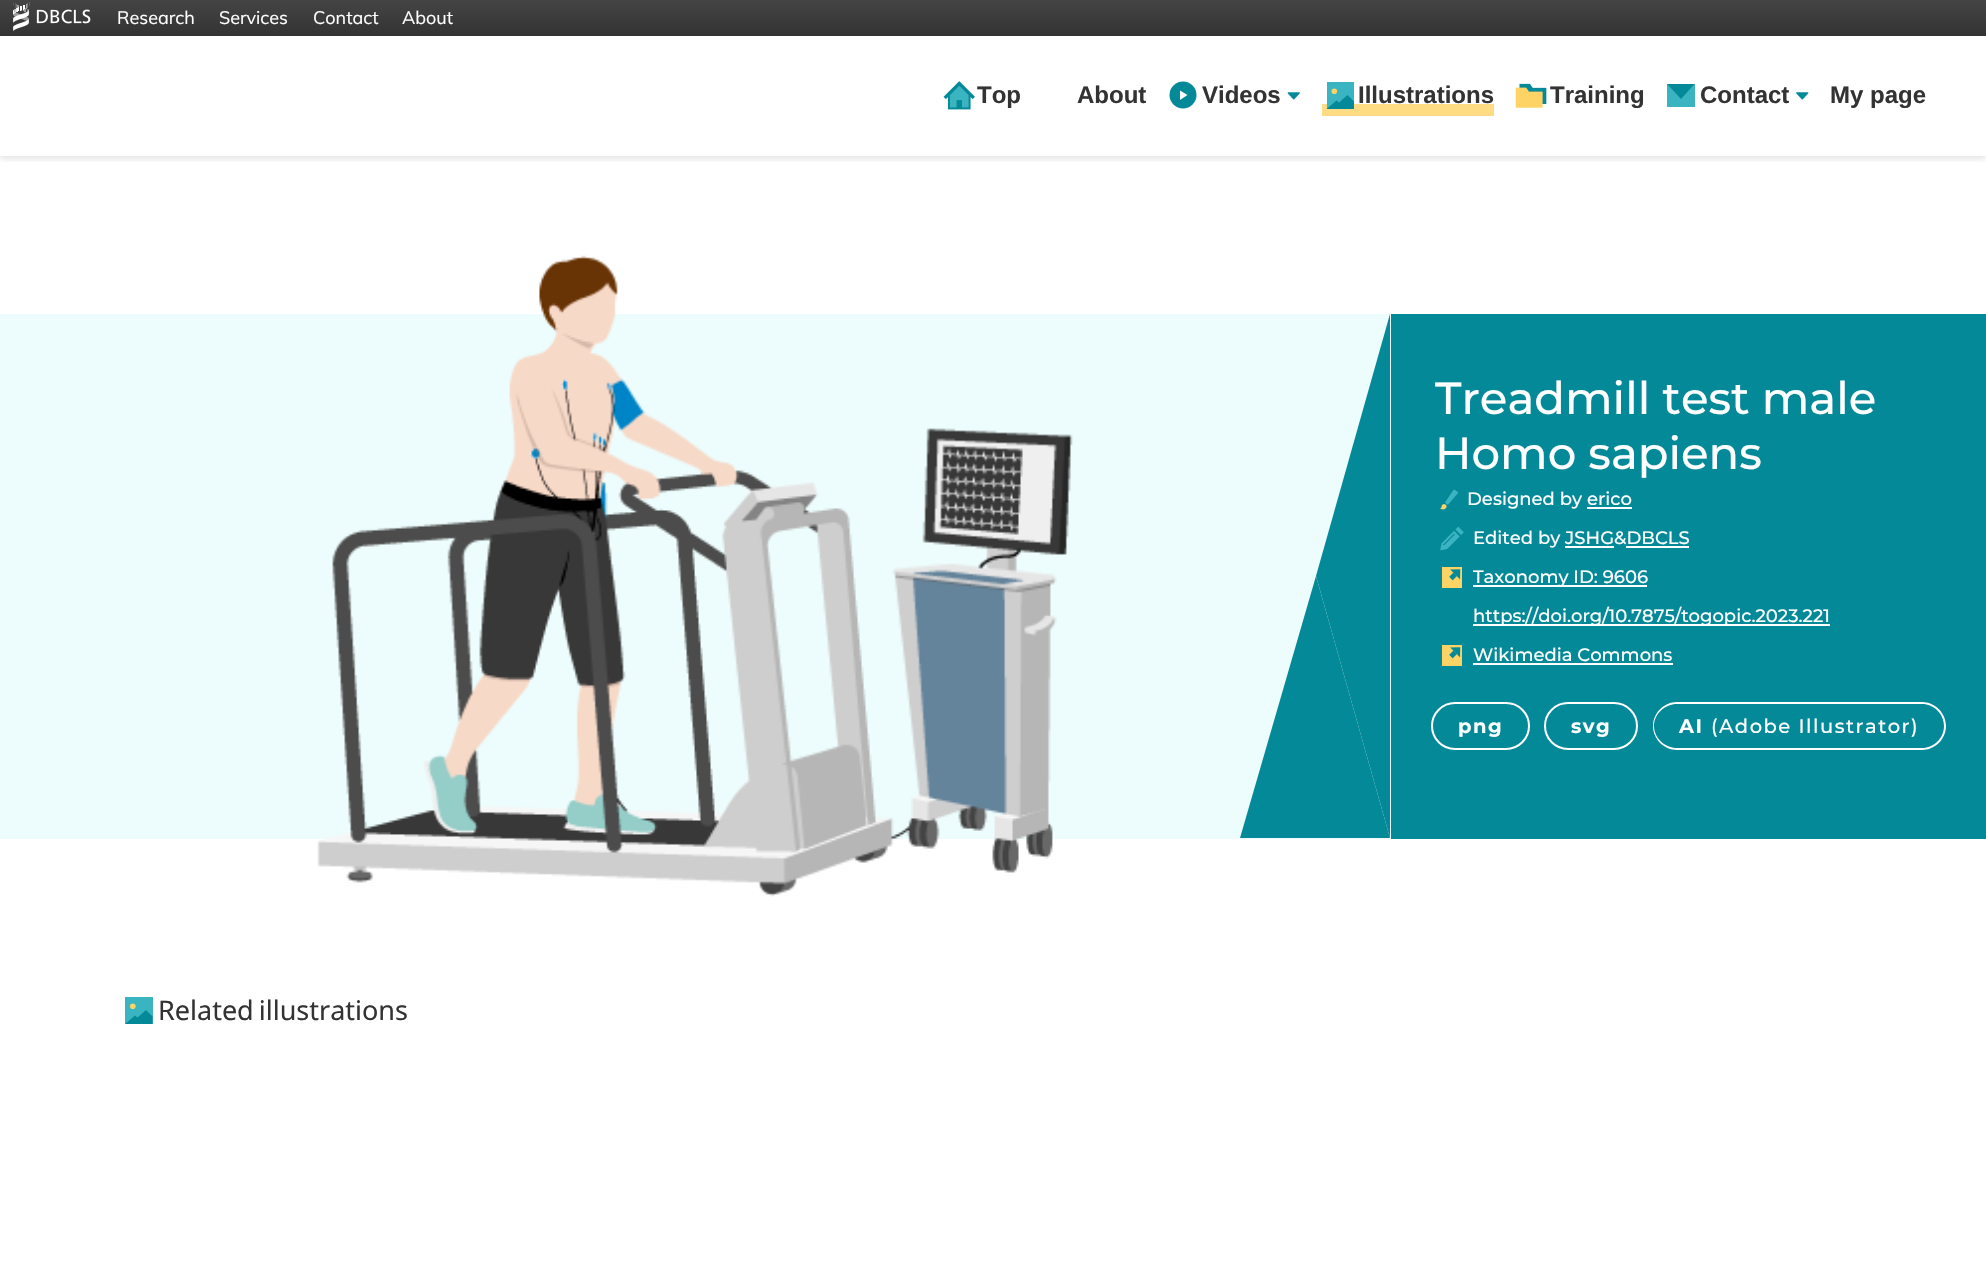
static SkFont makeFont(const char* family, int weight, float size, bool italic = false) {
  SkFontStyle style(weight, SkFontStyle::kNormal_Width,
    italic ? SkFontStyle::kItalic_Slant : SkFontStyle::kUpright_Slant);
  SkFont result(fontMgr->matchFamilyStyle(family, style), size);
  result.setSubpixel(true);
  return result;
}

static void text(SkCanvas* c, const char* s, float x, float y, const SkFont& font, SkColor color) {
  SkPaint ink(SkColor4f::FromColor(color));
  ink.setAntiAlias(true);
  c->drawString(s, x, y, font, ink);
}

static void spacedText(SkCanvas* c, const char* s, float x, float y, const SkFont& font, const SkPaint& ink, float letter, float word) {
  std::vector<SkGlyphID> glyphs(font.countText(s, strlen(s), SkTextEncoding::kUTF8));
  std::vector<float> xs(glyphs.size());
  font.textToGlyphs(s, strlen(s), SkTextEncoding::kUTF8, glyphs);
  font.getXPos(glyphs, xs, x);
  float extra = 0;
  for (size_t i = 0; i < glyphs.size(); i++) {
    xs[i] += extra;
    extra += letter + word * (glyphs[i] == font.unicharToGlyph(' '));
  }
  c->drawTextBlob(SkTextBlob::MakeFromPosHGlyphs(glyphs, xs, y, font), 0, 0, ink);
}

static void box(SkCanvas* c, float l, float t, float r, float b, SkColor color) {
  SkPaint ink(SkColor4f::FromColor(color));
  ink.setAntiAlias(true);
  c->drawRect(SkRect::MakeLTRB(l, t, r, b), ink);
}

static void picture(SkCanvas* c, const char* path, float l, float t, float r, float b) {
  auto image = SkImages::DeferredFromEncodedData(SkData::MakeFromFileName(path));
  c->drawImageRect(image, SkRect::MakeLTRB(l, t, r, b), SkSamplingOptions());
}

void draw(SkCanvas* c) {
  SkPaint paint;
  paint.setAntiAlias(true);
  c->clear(0xffffffff);
  c->save();
  c->clipRect(SkRect::MakeLTRB(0, 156, 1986, 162));
  paint.setColor(0x1a000000);
  paint.setMaskFilter(SkMaskFilter::MakeBlur(kNormal_SkBlurStyle, 3));
  c->drawRect(SkRect::MakeLTRB(0, 39, 1986, 159), paint);
  paint.setMaskFilter(nullptr);
  c->restore();
  {
    const SkColor colors[] = {0xff444444, 0xff333333};
    const float stops[] = {0, 1};
    const SkPoint ends[] = {{993, 0}, {993, 36}};
    paint.setShader(SkGradientShader::MakeLinear(ends, colors, stops, 2, SkTileMode::kClamp));
    paint.setAlpha(255);
  }
  c->drawRect(SkRect::MakeLTRB(0, 0, 1986, 36), paint);
  picture(c, "img_01.png", 13, 2, 91, 32);
  SkFont face1 = makeFont("Muli", 400, 18);
  text(c, "Research", 117, 24, face1, 0xffffffff);
  text(c, "Services", 219, 24, face1, 0xffffffff);
  text(c, "Contact", 313, 24, face1, 0xffffffff);
  text(c, "About", 402, 24, face1, 0xffffffff);
  picture(c, "img_02.png", 943, 81, 975, 110);
  SkFont face2 = makeFont("Liberation Sans", 700, 24);
  text(c, "Top", 977, 103, face2, 0xff333333);
  text(c, "About", 1077, 103, face2, 0xff333333);
  paint.setShader(nullptr);
  paint.setColor(0xff048998);
  c->drawCircle(1183, 95, 13.5f, paint);
  paint.setColor(0xffffffff);
  c->drawPath(SkPathBuilder().moveTo(1180, 90.5f).lineTo(1187.5f, 95).lineTo(1180, 100).close().detach(), paint);
  text(c, "Videos", 1202, 103, face2, 0xff333333);
  picture(c, "img_03.png", 1287, 92, 1300, 100);
  box(c, 1322, 104, 1494, 116, 0xfffddc84);
  box(c, 1327, 82, 1354, 109, 0xff3bb4c1);
  paint.setColor(0xff048998);
  c->drawPath(SkPathBuilder().moveTo(1326.5f, 109).lineTo(1336.5f, 100.5f).lineTo(1339, 102.5f).lineTo(1347.5f, 95).lineTo(1354, 101.5f).lineTo(1354, 109).close().detach(), paint);
  paint.setColor(0xfffdd365);
  c->drawCircle(1334.3f, 91.2f, 2.8f, paint);
  text(c, "Illustrations", 1358, 103, face2, 0xff333333);
  picture(c, "img_04.png", 1515, 83, 1547, 108);
  text(c, "Training", 1550, 103, face2, 0xff333333);
  box(c, 1667, 84, 1695, 107, 0xff3bb4c1);
  paint.setColor(0xff048998);
  c->drawPath(SkPathBuilder().moveTo(1667, 84).lineTo(1681, 99).lineTo(1694.5f, 84).close().detach(), paint);
  text(c, "Contact", 1700, 103, face2, 0xff333333);
  picture(c, "img_05.png", 1796, 92, 1809, 100);
  text(c, "My page", 1830, 103, face2, 0xff333333);
  box(c, 0, 314, 1391, 839, 0xffedfcfc);
  picture(c, "img_06.png", 317, 255, 1073, 897);
  box(c, 1391, 314, 1986, 839, 0xff048998);
  c->drawPath(SkPathBuilder().moveTo(1390, 314).lineTo(1390, 838).lineTo(1316, 576).close().detach(), paint);
  c->drawPath(SkPathBuilder().moveTo(1390, 838).lineTo(1240, 838).lineTo(1316, 576).close().detach(), paint);
  SkFont face3 = makeFont("Montserrat", 500, 45);
  text(c, "Treadmill test male", 1435, 414, face3, 0xffffffff);
  text(c, "Homo sapiens", 1435, 469, face3, 0xffffffff);
  picture(c, "img_07.png", 1440, 489, 1458, 510);
  SkFont face4 = makeFont("Montserrat", 500, 18);
  text(c, "Designed by erico", 1467, 505, face4, 0xffffffff);
  box(c, 1587, 507, 1632, 509, 0xffffffff);
  picture(c, "img_08.png", 1440, 526, 1464, 551);
  text(c, "Edited by JSHG&DBCLS", 1473, 544, face4, 0xffffffff);
  box(c, 1565, 546, 1614, 548, 0xffffffff);
  box(c, 1626, 546, 1689, 548, 0xffffffff);
  picture(c, "img_09.png", 1442, 567, 1462, 588);
  box(c, 1473, 585, 1647, 587, 0xffffffff);
  text(c, "Taxonomy ID: 9606", 1473, 583, face4, 0xffffffff);
  box(c, 1473, 624, 1830, 626, 0xffffffff);
  text(c, "https://doi.org/10.7875/togopic.2023.221", 1473, 622, face4, 0xffffffff);
  picture(c, "img_09.png", 1442, 645, 1462, 666);
  text(c, "Wikimedia Commons", 1473, 661, face4, 0xffffffff);
  box(c, 1473, 663, 1673, 665, 0xffffffff);
  paint.setStyle(SkPaint::kStroke_Style);
  paint.setStrokeWidth(2);
  paint.setColor(0xffffffff);
  c->drawRoundRect(SkRect::MakeLTRB(1432, 703, 1529, 749), 23, 23, paint);
  SkFont face5 = makeFont("Montserrat", 700, 19.5f);
  paint.setStyle(SkPaint::kFill_Style);
  spacedText(c, "png", 1458, 733, face5, paint, 1.5f, 0);
  paint.setStyle(SkPaint::kStroke_Style);
  c->drawRoundRect(SkRect::MakeLTRB(1545, 703, 1637, 749), 23, 23, paint);
  paint.setStyle(SkPaint::kFill_Style);
  spacedText(c, "svg", 1571, 733, face5, paint, 1.5f, 0);
  c->drawPath(SkPathBuilder(SkPathFillType::kEvenOdd).moveTo(1677, 702).lineTo(1710, 702).lineTo(1710, 750).lineTo(1677, 750).cubicTo(1664, 750, 1653, 739, 1653, 726).cubicTo(1653, 713, 1664, 702, 1677, 702).close().moveTo(1677, 704).lineTo(1710, 704).lineTo(1710, 748).lineTo(1677, 748).cubicTo(1665, 748, 1654, 738, 1654, 726).cubicTo(1654, 714, 1665, 704, 1677, 704).close().detach(), paint);
  spacedText(c, "AI", 1679, 733, face5, paint, 1.5f, 0);
  c->drawPath(SkPathBuilder(SkPathFillType::kEvenOdd).moveTo(1710, 702).lineTo(1922, 702).cubicTo(1935, 702, 1946, 713, 1946, 726).cubicTo(1946, 739, 1935, 750, 1922, 750).lineTo(1710, 750).close().moveTo(1710, 704).lineTo(1922, 704).cubicTo(1934, 704, 1944, 714, 1944, 726).cubicTo(1944, 738, 1934, 748, 1922, 748).lineTo(1710, 748).close().detach(), paint);
  SkFont face6 = makeFont("Montserrat", 500, 19.5f);
  spacedText(c, "(Adobe Illustrator)", 1711, 733, face6, paint, 1.5f, 0);
  box(c, 125, 997, 153, 1024, 0xff3bb4c1);
  paint.setColor(0xff048998);
  c->drawPath(SkPathBuilder().moveTo(125, 1024).lineTo(135, 1015.5f).lineTo(137.5f, 1017.5f).lineTo(146, 1010).lineTo(152.5f, 1016.5f).lineTo(152.5f, 1024).close().detach(), paint);
  paint.setColor(0xfffdd365);
  c->drawCircle(132.8f, 1006.2f, 2.8f, paint);
  SkFont face7 = makeFont("Noto Sans", 400, 27);
  paint.setColor(0xff333333);
  spacedText(c, "Related illustrations", 158, 1020, face7, paint, 0, -2);
}
